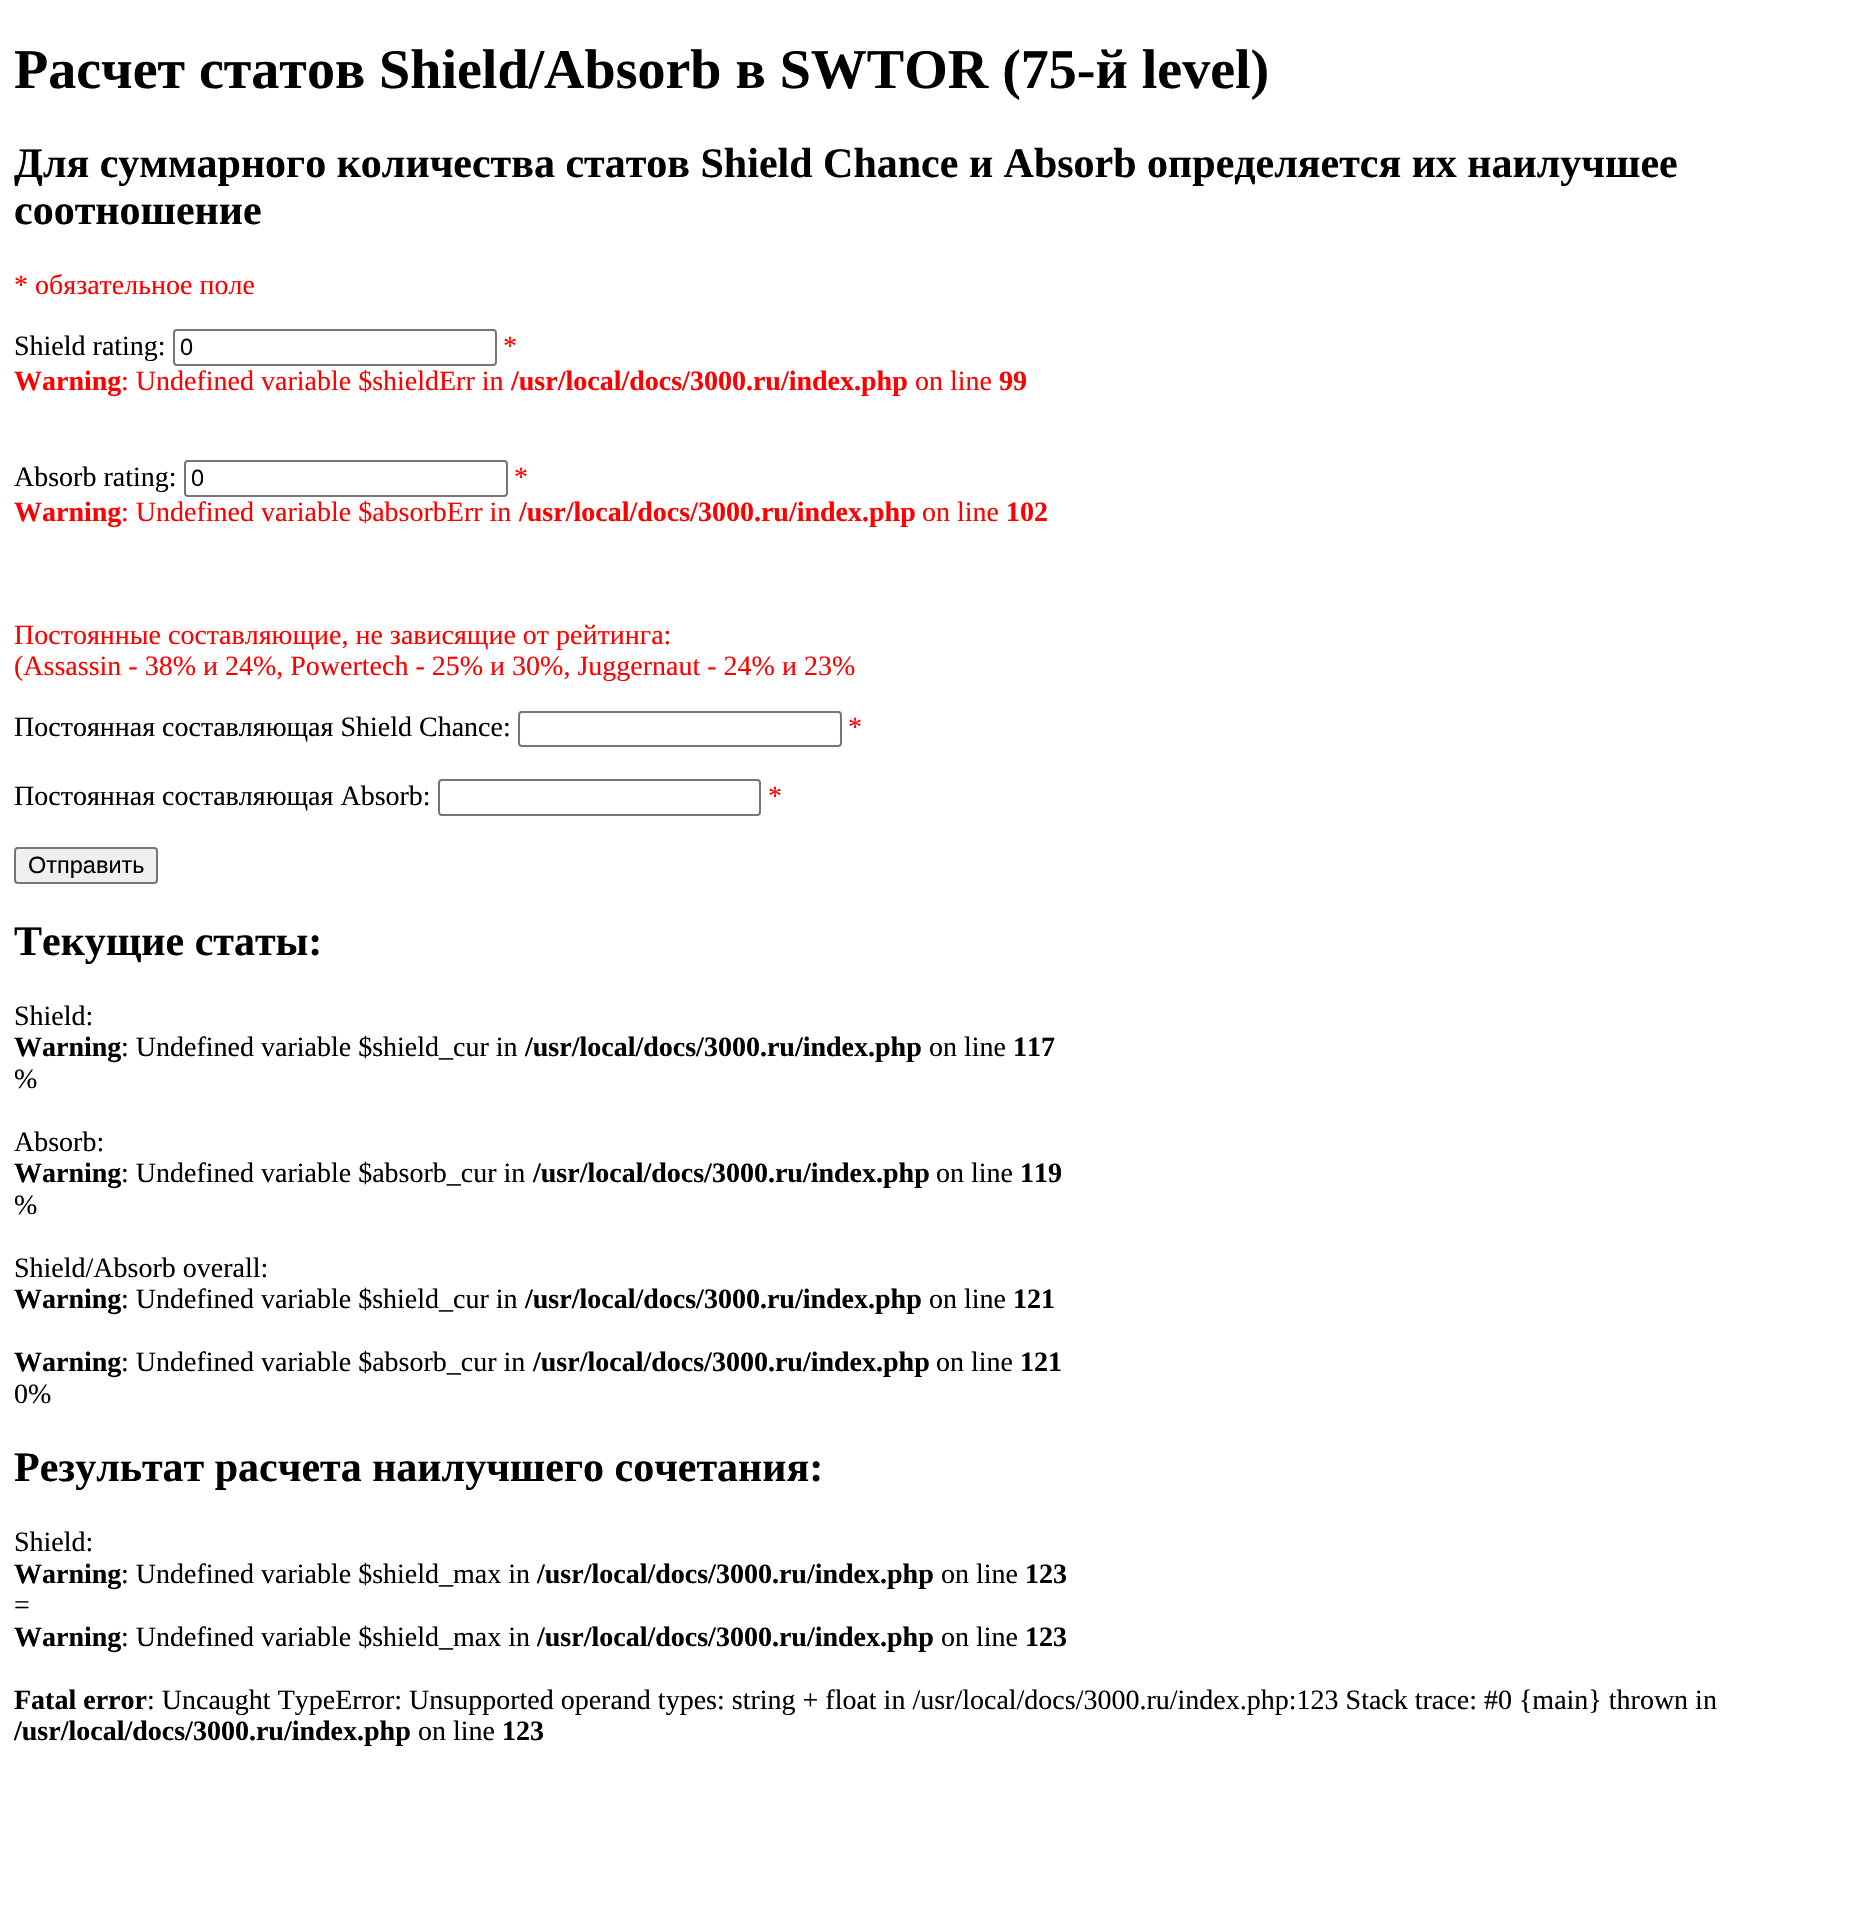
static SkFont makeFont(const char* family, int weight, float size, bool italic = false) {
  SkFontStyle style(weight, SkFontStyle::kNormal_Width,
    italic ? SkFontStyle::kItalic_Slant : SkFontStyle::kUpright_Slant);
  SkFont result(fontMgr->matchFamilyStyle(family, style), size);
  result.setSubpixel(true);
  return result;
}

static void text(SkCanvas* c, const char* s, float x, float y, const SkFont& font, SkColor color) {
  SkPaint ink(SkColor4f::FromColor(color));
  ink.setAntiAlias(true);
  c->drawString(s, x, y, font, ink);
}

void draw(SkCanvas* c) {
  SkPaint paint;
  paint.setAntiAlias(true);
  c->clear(0xffffffff);
  SkFont face1 = makeFont("Liberation Serif", 700, 56);
  text(c, "Расчет статов Shield/Absorb в SWTOR (75-й level)", 14, 88, face1, 0xff000000);
  SkFont face2 = makeFont("Liberation Serif", 700, 42);
  text(c, "Для суммарного количества статов Shield Chance и Absorb определяется их наилучшее", 14, 177, face2, 0xff000000);
  text(c, "соотношение", 14, 224, face2, 0xff000000);
  SkFont face3 = makeFont("Liberation Serif", 400, 28);
  text(c, "* обязательное поле", 14, 294, face3, 0xffff0000);
  text(c, "Shield rating:", 14, 355, face3, 0xff000000);
  paint.setStyle(SkPaint::kStroke_Style);
  paint.setStrokeWidth(2);
  paint.setColor(0xff767676);
  c->drawRoundRect(SkRect::MakeLTRB(174, 330, 496, 365), 3, 3, paint);
  SkFont face4 = makeFont("Liberation Sans", 400, 23.5f);
  text(c, "0", 180, 355, face4, 0xff000000);
  text(c, "*", 503, 355, face3, 0xffff0000);
  SkFont face5 = makeFont("Liberation Serif", 700, 28);
  text(c, "Warning", 14, 390, face5, 0xffff0000);
  text(c, ": Undefined variable $shieldErr in", 121, 390, face3, 0xffff0000);
  text(c, "/usr/local/docs/3000.ru/index.php", 511, 390, face5, 0xffff0000);
  text(c, "on line", 915, 390, face3, 0xffff0000);
  text(c, "99", 999, 390, face5, 0xffff0000);
  text(c, "Absorb rating:", 14, 486, face3, 0xff000000);
  c->drawRoundRect(SkRect::MakeLTRB(185, 461, 507, 496), 3, 3, paint);
  text(c, "0", 191, 486, face4, 0xff000000);
  text(c, "*", 514, 486, face3, 0xffff0000);
  text(c, "Warning", 14, 521, face5, 0xffff0000);
  text(c, ": Undefined variable $absorbErr in", 121, 521, face3, 0xffff0000);
  text(c, "/usr/local/docs/3000.ru/index.php", 519, 521, face5, 0xffff0000);
  text(c, "on line", 922, 521, face3, 0xffff0000);
  text(c, "102", 1006, 521, face5, 0xffff0000);
  text(c, "Постоянные составляющие, не зависящие от рейтинга:", 14, 644, face3, 0xffff0000);
  text(c, "(Assassin - 38% и 24%, Powertech - 25% и 30%, Juggernaut - 24% и 23%", 14, 675, face3, 0xffff0000);
  text(c, "Постоянная составляющая Shield Chance:", 14, 736, face3, 0xff000000);
  c->drawRoundRect(SkRect::MakeLTRB(519, 712, 841, 746), 3, 3, paint);
  text(c, "*", 848, 736, face3, 0xffff0000);
  text(c, "Постоянная составляющая Absorb:", 14, 805, face3, 0xff000000);
  c->drawRoundRect(SkRect::MakeLTRB(439, 780, 760, 815), 3, 3, paint);
  text(c, "*", 768, 805, face3, 0xffff0000);
  paint.setStyle(SkPaint::kFill_Style);
  paint.setColor(0xffefefef);
  c->drawRoundRect(SkRect::MakeLTRB(15, 848, 157, 883), 3, 3, paint);
  paint.setStyle(SkPaint::kStroke_Style);
  paint.setColor(0xff767676);
  c->drawRoundRect(SkRect::MakeLTRB(15, 848, 157, 883), 3, 3, paint);
  text(c, "Отправить", 28, 873, face4, 0xff000000);
  text(c, "Текущие статы:", 14, 955, face2, 0xff000000);
  text(c, "Shield:", 14, 1025, face3, 0xff000000);
  text(c, "Warning", 14, 1056, face5, 0xff000000);
  text(c, ": Undefined variable $shield_cur in", 121, 1056, face3, 0xff000000);
  text(c, "/usr/local/docs/3000.ru/index.php", 525, 1056, face5, 0xff000000);
  text(c, "on line", 929, 1056, face3, 0xff000000);
  text(c, "117", 1013, 1056, face5, 0xff000000);
  text(c, "%", 14, 1088, face3, 0xff000000);
  text(c, "Absorb:", 14, 1151, face3, 0xff000000);
  text(c, "Warning", 14, 1182, face5, 0xff000000);
  text(c, ": Undefined variable $absorb_cur in", 121, 1182, face3, 0xff000000);
  text(c, "/usr/local/docs/3000.ru/index.php", 533, 1182, face5, 0xff000000);
  text(c, "on line", 936, 1182, face3, 0xff000000);
  text(c, "119", 1020, 1182, face5, 0xff000000);
  text(c, "%", 14, 1214, face3, 0xff000000);
  text(c, "Shield/Absorb overall:", 14, 1277, face3, 0xff000000);
  text(c, "Warning", 14, 1308, face5, 0xff000000);
  text(c, ": Undefined variable $shield_cur in", 121, 1308, face3, 0xff000000);
  text(c, "/usr/local/docs/3000.ru/index.php", 525, 1308, face5, 0xff000000);
  text(c, "on line", 929, 1308, face3, 0xff000000);
  text(c, "121", 1013, 1308, face5, 0xff000000);
  text(c, "Warning", 14, 1371, face5, 0xff000000);
  text(c, ": Undefined variable $absorb_cur in", 121, 1371, face3, 0xff000000);
  text(c, "/usr/local/docs/3000.ru/index.php", 533, 1371, face5, 0xff000000);
  text(c, "on line", 936, 1371, face3, 0xff000000);
  text(c, "121", 1020, 1371, face5, 0xff000000);
  text(c, "0%", 14, 1403, face3, 0xff000000);
  text(c, "Результат расчета наилучшего сочетания:", 14, 1481, face2, 0xff000000);
  text(c, "Shield:", 14, 1551, face3, 0xff000000);
  text(c, "Warning", 14, 1583, face5, 0xff000000);
  text(c, ": Undefined variable $shield_max in", 121, 1583, face3, 0xff000000);
  text(c, "/usr/local/docs/3000.ru/index.php", 537, 1583, face5, 0xff000000);
  text(c, "on line", 941, 1583, face3, 0xff000000);
  text(c, "123", 1025, 1583, face5, 0xff000000);
  text(c, "=", 14, 1614, face3, 0xff000000);
  text(c, "Warning", 14, 1646, face5, 0xff000000);
  text(c, ": Undefined variable $shield_max in", 121, 1646, face3, 0xff000000);
  text(c, "/usr/local/docs/3000.ru/index.php", 537, 1646, face5, 0xff000000);
  text(c, "on line", 941, 1646, face3, 0xff000000);
  text(c, "123", 1025, 1646, face5, 0xff000000);
  text(c, "Fatal error", 14, 1709, face5, 0xff000000);
  text(c, ": Uncaught TypeError: Unsupported operand types: string + float in /usr/local/docs/3000.ru/index.php:123 Stack trace: #0 {main} thrown in", 147, 1709, face3, 0xff000000);
  text(c, "/usr/local/docs/3000.ru/index.php", 14, 1740, face5, 0xff000000);
  text(c, "on line", 418, 1740, face3, 0xff000000);
  text(c, "123", 502, 1740, face5, 0xff000000);
}
